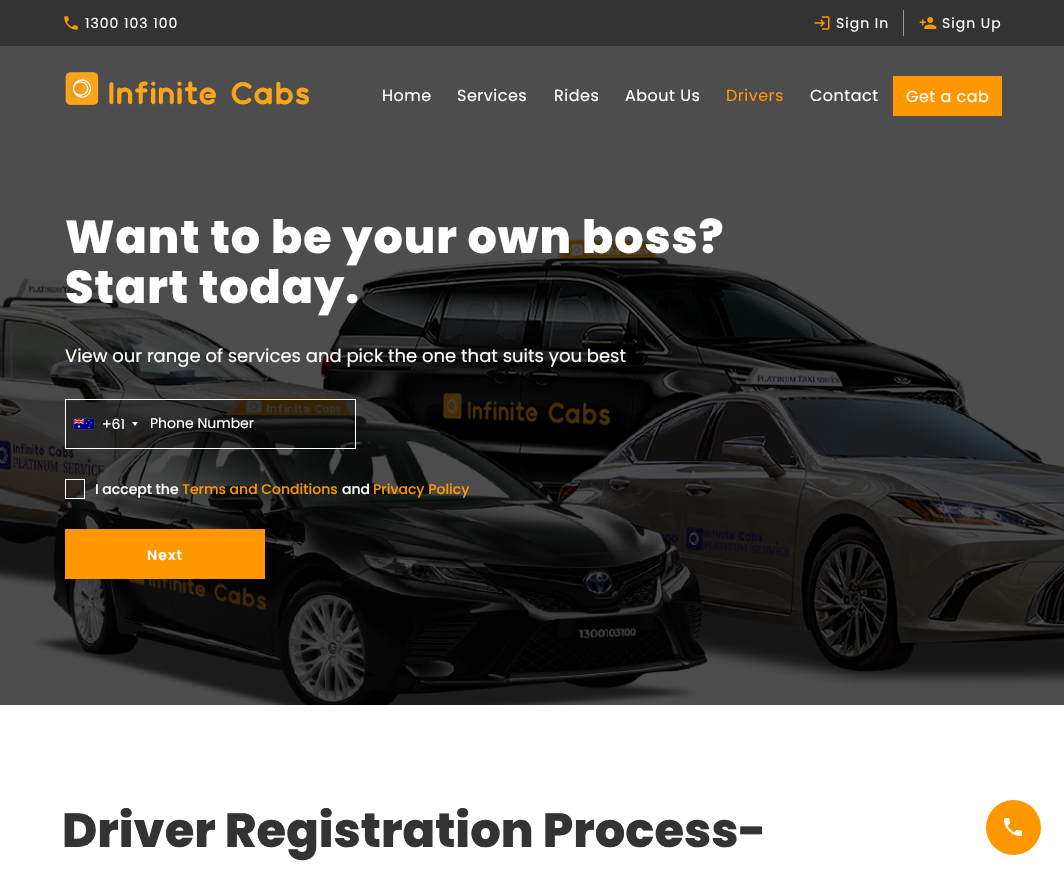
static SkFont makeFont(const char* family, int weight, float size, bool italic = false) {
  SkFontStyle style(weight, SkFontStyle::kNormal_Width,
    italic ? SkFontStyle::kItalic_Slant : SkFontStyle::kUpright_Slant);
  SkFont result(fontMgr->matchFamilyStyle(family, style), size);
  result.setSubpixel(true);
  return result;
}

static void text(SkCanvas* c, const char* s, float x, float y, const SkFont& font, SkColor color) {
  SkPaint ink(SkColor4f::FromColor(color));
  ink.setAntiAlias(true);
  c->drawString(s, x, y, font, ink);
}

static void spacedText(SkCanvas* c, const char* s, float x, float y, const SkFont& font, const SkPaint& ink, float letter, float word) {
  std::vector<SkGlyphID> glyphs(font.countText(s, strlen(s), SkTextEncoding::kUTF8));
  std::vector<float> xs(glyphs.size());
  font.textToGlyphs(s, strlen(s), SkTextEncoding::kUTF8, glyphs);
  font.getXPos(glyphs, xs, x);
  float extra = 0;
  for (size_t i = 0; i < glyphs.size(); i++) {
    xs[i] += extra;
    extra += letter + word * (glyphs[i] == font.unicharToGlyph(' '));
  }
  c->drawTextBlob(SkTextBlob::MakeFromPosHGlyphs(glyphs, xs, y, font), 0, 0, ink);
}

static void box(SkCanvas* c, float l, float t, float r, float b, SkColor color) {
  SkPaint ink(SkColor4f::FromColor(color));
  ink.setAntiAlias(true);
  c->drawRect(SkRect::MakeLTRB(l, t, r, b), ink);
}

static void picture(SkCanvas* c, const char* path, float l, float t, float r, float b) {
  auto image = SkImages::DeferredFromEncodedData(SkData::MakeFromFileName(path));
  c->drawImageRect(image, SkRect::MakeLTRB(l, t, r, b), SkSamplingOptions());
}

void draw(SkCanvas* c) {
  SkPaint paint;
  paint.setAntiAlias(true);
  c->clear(0xffffffff);
  box(c, 0, 46, 1064, 705, 0xff4d4d4d);
  box(c, 0, 0, 1064, 46, 0xff333333);
  picture(c, "img_01.png", 64, 16, 78, 30);
  SkFont face1 = makeFont("Poppins", 400, 14);
  paint.setColor(0xffffffff);
  spacedText(c, "1300 103 100", 85, 28, face1, paint, 1, 0);
  picture(c, "img_02.png", 814, 16, 830, 30);
  spacedText(c, "Sign In", 836, 28, face1, paint, 1, 0);
  box(c, 903, 10, 904, 36, 0xff999999);
  picture(c, "img_03.png", 919, 17, 937, 29);
  spacedText(c, "Sign Up", 942, 28, face1, paint, 1, 0);
  picture(c, "img_04.png", 65, 72, 309, 105);
  SkFont face2 = makeFont("Poppins", 400, 16);
  spacedText(c, "Home", 382, 101, face2, paint, 0.5f, 0);
  spacedText(c, "Services", 457, 101, face2, paint, 0.5f, 0);
  spacedText(c, "Rides", 554, 101, face2, paint, 0.5f, 0);
  spacedText(c, "About Us", 625, 101, face2, paint, 0.5f, 0);
  paint.setColor(0xffff9800);
  spacedText(c, "Drivers", 726, 101, face2, paint, 0.5f, 0);
  paint.setColor(0xffffffff);
  spacedText(c, "Contact", 810, 101, face2, paint, 0.5f, 0);
  box(c, 893, 76, 1002, 116, 0xffff9800);
  spacedText(c, "Get a cab", 906, 102, face2, paint, 0.5f, 0);
  picture(c, "img_05.png", 0, 239, 1064, 705);
  SkFont face3 = makeFont("Poppins", 800, 46);
  spacedText(c, "Want to be your own boss?", 65, 253, face3, paint, 1, 0);
  spacedText(c, "Start today.", 65, 303, face3, paint, 1, 0);
  SkFont face4 = makeFont("Poppins", 400, 18);
  text(c, "View our range of services and pick the one that suits you best", 65, 362, face4, 0xffffffff);
  paint.setColor(0x4d000000);
  c->drawRect(SkRect::MakeLTRB(65.5f, 399.5f, 355.5f, 448.5f), paint);
  paint.setStyle(SkPaint::kStroke_Style);
  paint.setStrokeWidth(1);
  paint.setColor(0xffffffff);
  c->drawRect(SkRect::MakeLTRB(65.5f, 399.5f, 355.5f, 448.5f), paint);
  paint.setStyle(SkPaint::kFill_Style);
  paint.setColor(0xff888888);
  paint.setMaskFilter(SkMaskFilter::MakeBlur(kNormal_SkBlurStyle, 0.5f));
  c->drawRect(SkRect::MakeLTRB(74, 419, 94, 429), paint);
  paint.setMaskFilter(nullptr);
  picture(c, "img_06.png", 74, 419, 94, 429);
  text(c, "+61", 102, 429, face1, 0xffffffff);
  paint.setColor(0xffffffff);
  c->drawPath(SkPathBuilder().moveTo(132, 422).lineTo(138, 422).lineTo(135, 426).close().detach(), paint);
  text(c, "Phone Number", 150, 428, face1, 0xffffffff);
  paint.setStyle(SkPaint::kStroke_Style);
  c->drawRect(SkRect::MakeLTRB(65.5f, 479.5f, 84.5f, 498.5f), paint);
  SkFont face5 = makeFont("Poppins", 500, 14);
  text(c, "I accept the", 95, 494, face5, 0xffffffff);
  text(c, "Terms and Conditions", 182, 494, face5, 0xffff9800);
  text(c, "and", 342, 494, face5, 0xffffffff);
  text(c, "Privacy Policy", 373, 494, face5, 0xffff9800);
  box(c, 65, 529, 265, 579, 0xffff9800);
  SkFont face6 = makeFont("Poppins", 600, 14);
  paint.setStyle(SkPaint::kFill_Style);
  spacedText(c, "Next", 147, 560, face6, paint, 1, 0);
  SkFont face7 = makeFont("Poppins", 800, 48);
  text(c, "Driver Registration Process-", 62, 847, face7, 0xff333333);
  paint.setColor(0xffff9800);
  c->drawCircle(1013.5f, 827.5f, 27.5f, paint);
  picture(c, "img_07.png", 1004, 818, 1022, 836);
}
